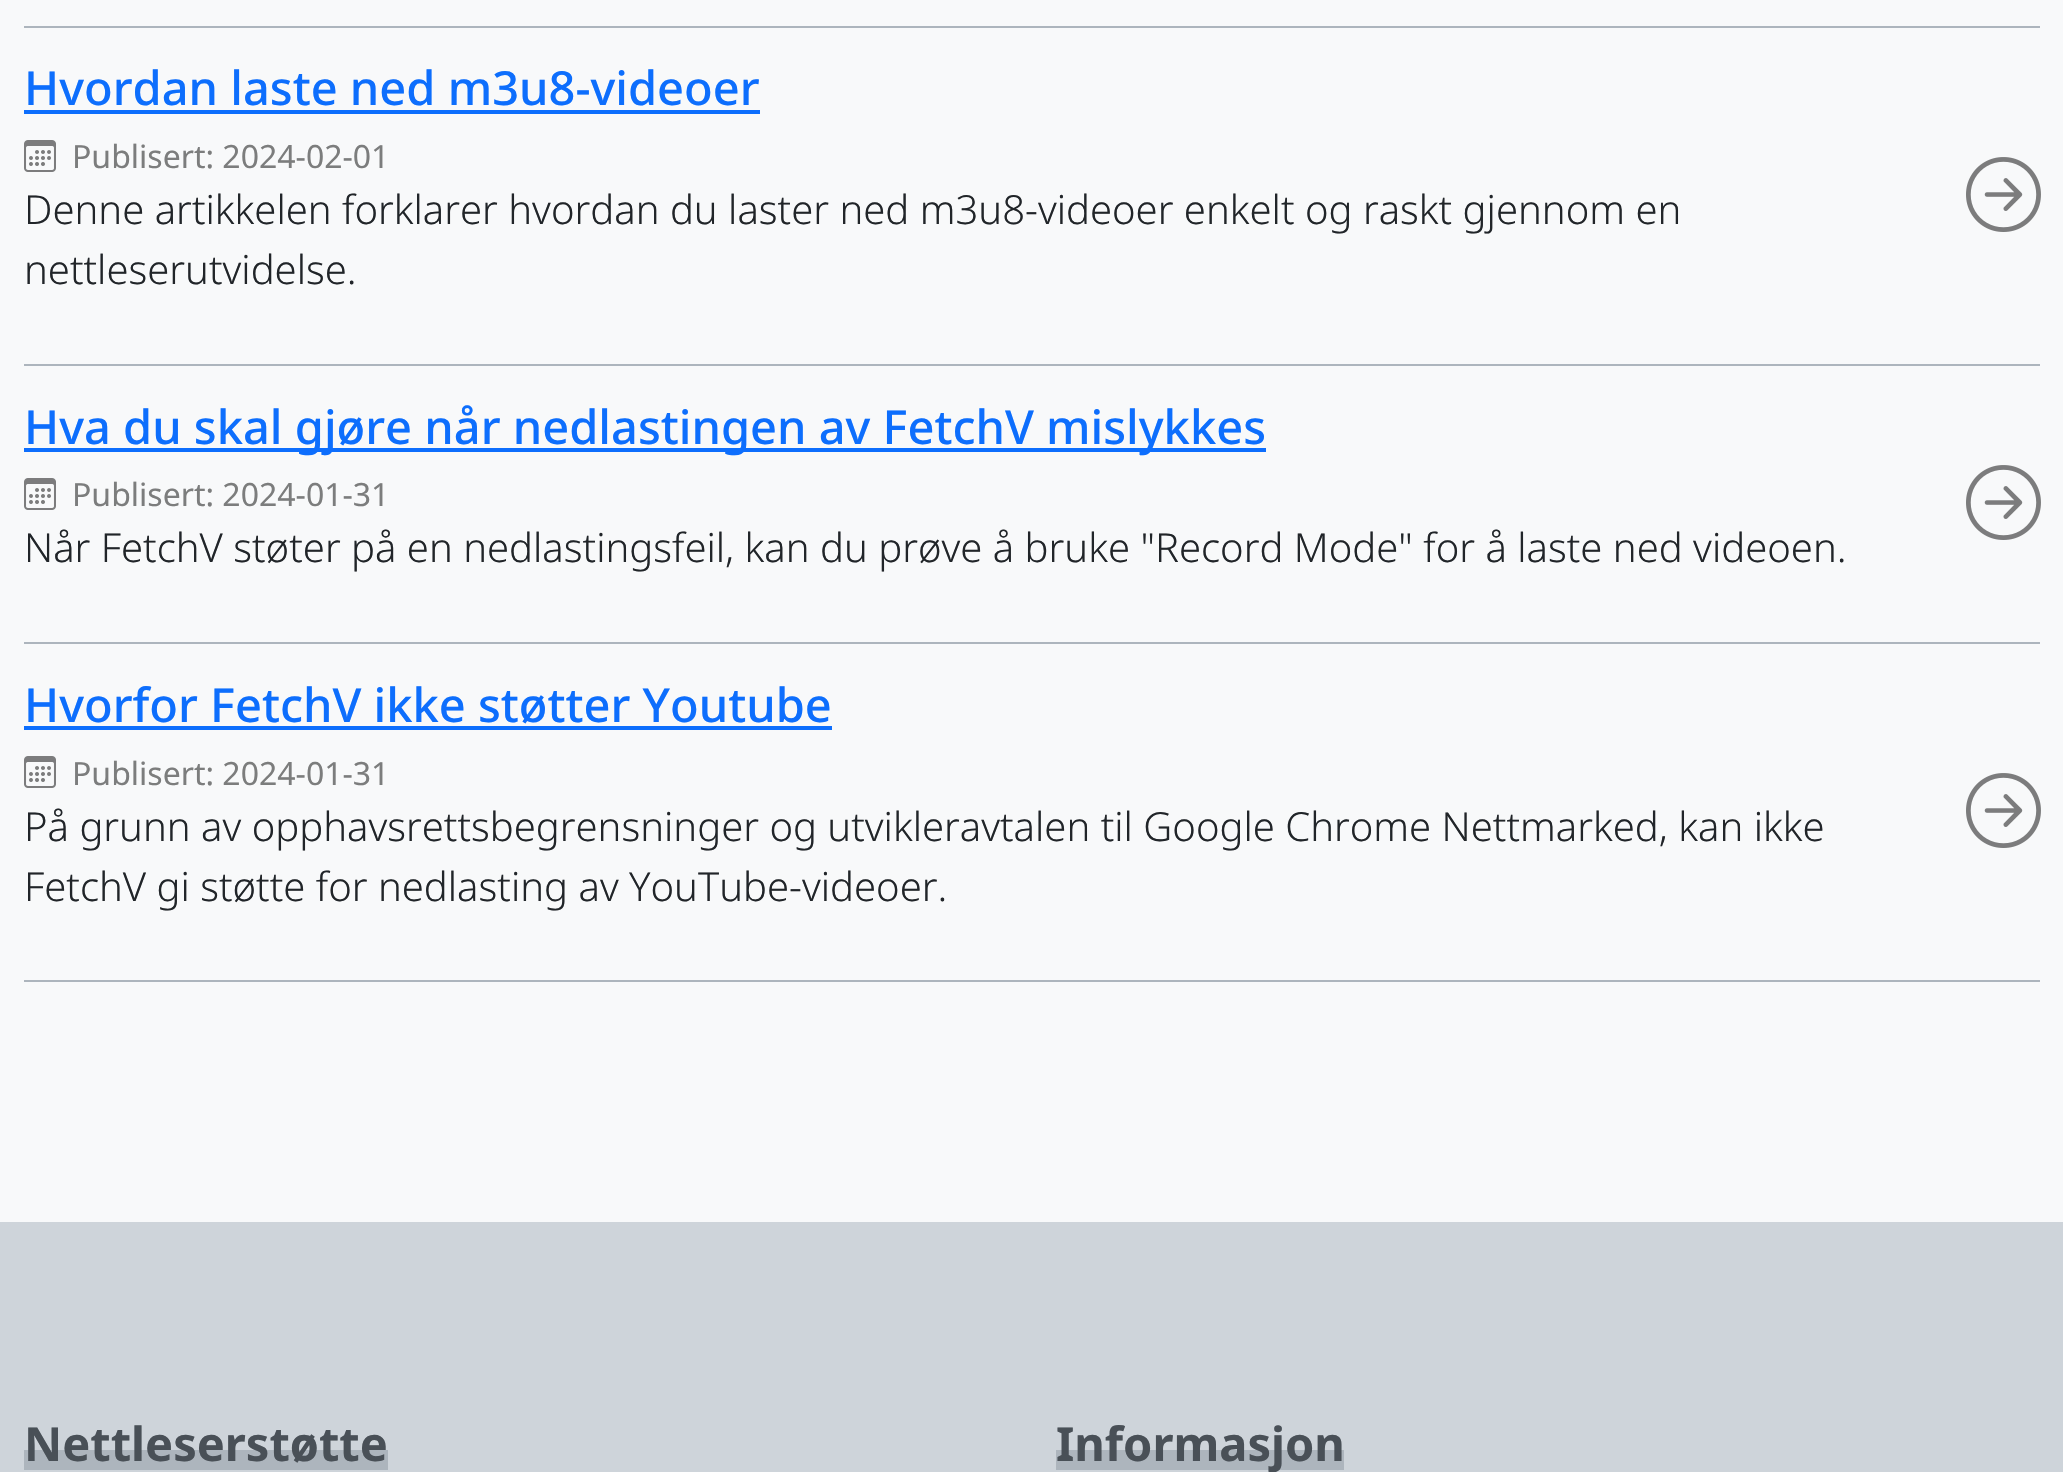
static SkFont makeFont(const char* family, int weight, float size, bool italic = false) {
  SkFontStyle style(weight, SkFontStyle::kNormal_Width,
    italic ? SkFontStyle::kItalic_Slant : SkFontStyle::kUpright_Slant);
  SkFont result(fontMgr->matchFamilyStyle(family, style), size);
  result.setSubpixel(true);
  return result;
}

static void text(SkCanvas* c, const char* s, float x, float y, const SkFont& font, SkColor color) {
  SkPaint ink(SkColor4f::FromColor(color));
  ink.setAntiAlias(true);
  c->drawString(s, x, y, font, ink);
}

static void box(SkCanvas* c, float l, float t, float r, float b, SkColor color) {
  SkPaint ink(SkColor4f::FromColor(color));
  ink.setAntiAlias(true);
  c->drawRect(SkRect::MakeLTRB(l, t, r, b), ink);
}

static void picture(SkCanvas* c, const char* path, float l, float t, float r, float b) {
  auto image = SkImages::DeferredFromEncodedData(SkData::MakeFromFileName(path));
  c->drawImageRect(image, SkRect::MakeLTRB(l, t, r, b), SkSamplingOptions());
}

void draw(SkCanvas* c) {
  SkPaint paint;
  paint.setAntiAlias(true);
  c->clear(0xfff8f9fa);
  box(c, 24, 26, 2040, 28, 0xffadb5bd);
  box(c, 24, 364, 2040, 366, 0xffadb5bd);
  SkFont face1 = makeFont("Noto Sans", 500, 47);
  text(c, "Hvordan laste ned m3u8-videoer", 24, 105, face1, 0xff0d6efd);
  box(c, 24, 110, 760, 114, 0xff0d6efd);
  picture(c, "img_01.png", 24, 140, 56, 172);
  SkFont face2 = makeFont("Noto Sans", 400, 32);
  text(c, "Publisert: 2024-02-01", 72, 168, face2, 0xff7c7d7d);
  SkFont face3 = makeFont("Noto Sans", 300, 40);
  text(c, "Denne artikkelen forklarer hvordan du laster ned m3u8-videoer enkelt og raskt gjennom en", 24, 224, face3, 0xff212529);
  text(c, "nettleserutvidelse.", 24, 284, face3, 0xff212529);
  picture(c, "img_02.png", 1966, 157, 2041, 232);
  box(c, 24, 642, 2040, 644, 0xffadb5bd);
  box(c, 24, 448, 1266, 452, 0xff0d6efd);
  text(c, "Hva du skal gjøre når nedlastingen av FetchV mislykkes", 24, 444, face1, 0xff0d6efd);
  picture(c, "img_01.png", 24, 478, 56, 510);
  text(c, "Publisert: 2024-01-31", 72, 506, face2, 0xff7c7d7d);
  text(c, "Når FetchV støter på en nedlastingsfeil, kan du prøve å bruke \"Record Mode\" for å laste ned videoen.", 24, 562, face3, 0xff212529);
  picture(c, "img_02.png", 1966, 465, 2041, 540);
  box(c, 24, 980, 2040, 982, 0xffadb5bd);
  text(c, "Hvorfor FetchV ikke støtter Youtube", 24, 722, face1, 0xff0d6efd);
  box(c, 24, 726, 832, 730, 0xff0d6efd);
  picture(c, "img_01.png", 24, 756, 56, 788);
  text(c, "Publisert: 2024-01-31", 72, 785, face2, 0xff7c7d7d);
  text(c, "På grunn av opphavsrettsbegrensninger og utvikleravtalen til Google Chrome Nettmarked, kan ikke", 24, 841, face3, 0xff212529);
  text(c, "FetchV gi støtte for nedlasting av YouTube-videoer.", 24, 901, face3, 0xff212529);
  picture(c, "img_02.png", 1966, 773, 2041, 848);
  box(c, 0, 1222, 2063, 1472, 0xffced4da);
  box(c, 24, 1450, 388, 1470, 0xffadb5bd);
  SkFont face4 = makeFont("Noto Sans", 700, 47);
  text(c, "Nettleserstøtte", 24, 1461, face4, 0xff495057);
  box(c, 1056, 1450, 1344, 1470, 0xffadb5bd);
  text(c, "Informasjon", 1056, 1461, face4, 0xff495057);
}
